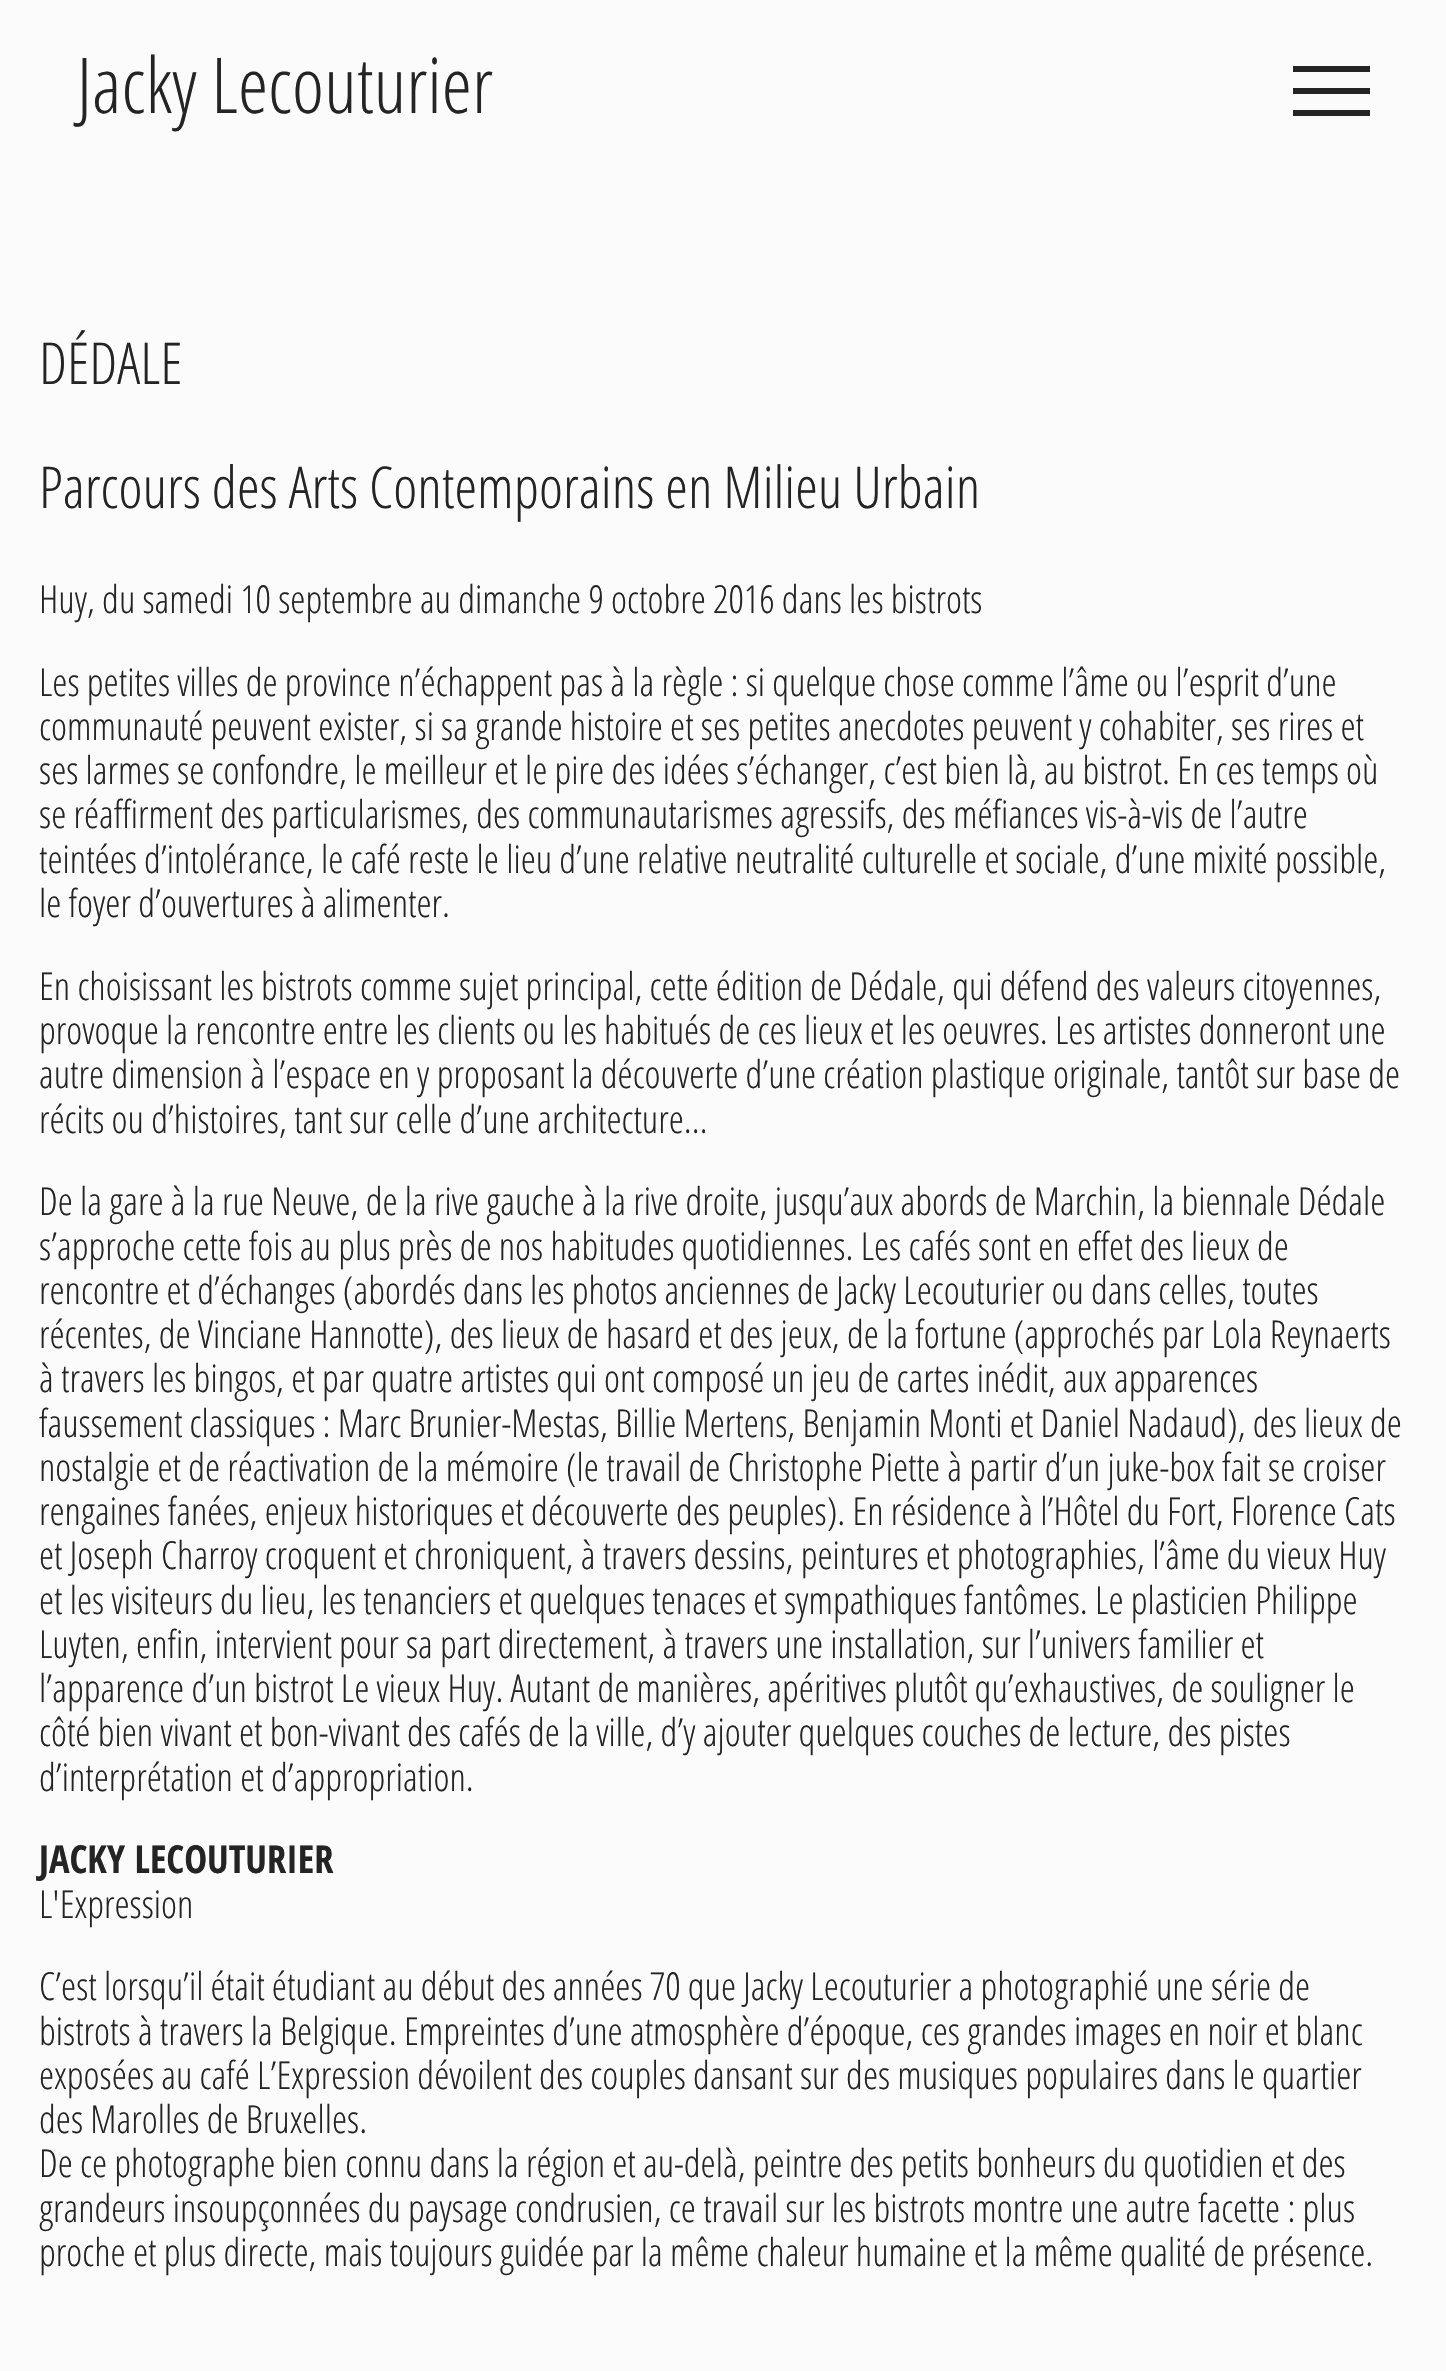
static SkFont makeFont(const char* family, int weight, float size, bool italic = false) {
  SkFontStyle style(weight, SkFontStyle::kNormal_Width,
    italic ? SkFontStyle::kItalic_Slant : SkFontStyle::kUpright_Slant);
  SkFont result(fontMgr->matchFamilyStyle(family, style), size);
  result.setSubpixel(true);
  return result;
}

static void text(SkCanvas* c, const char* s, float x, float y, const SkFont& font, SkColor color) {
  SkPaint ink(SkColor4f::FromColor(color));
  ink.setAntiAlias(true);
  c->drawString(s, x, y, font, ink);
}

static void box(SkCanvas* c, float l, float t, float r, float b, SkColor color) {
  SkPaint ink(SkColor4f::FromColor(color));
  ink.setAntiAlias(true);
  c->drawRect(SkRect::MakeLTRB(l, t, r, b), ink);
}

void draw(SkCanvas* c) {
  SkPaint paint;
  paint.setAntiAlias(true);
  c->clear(0xfffbfbfb);
  SkFont face1 = makeFont("Open Sans Condensed", 300, 77);
  text(c, "Jacky Lecouturier", 77, 113, face1, 0xff242424);
  box(c, 1293, 66, 1370, 72, 0xff242424);
  box(c, 1293, 88, 1370, 94, 0xff242424);
  box(c, 1293, 110, 1370, 116, 0xff242424);
  SkFont face2 = makeFont("Open Sans Condensed", 300, 57.75f);
  text(c, "DÉDALE", 39, 384, face2, 0xff242424);
  text(c, "Parcours des Arts Contemporains en Milieu Urbain", 39, 508, face2, 0xff242424);
  SkFont face3 = makeFont("Open Sans Condensed", 300, 38.5f);
  text(c, "Huy, du samedi 10 septembre au dimanche 9 octobre 2016 dans les bistrots", 39, 613, face3, 0xff242424);
  text(c, "Les petites villes de province n’échappent pas à la règle : si quelque chose comme l’âme ou l’esprit d’une", 39, 696, face3, 0xff242424);
  text(c, "communauté peuvent exister, si sa grande histoire et ses petites anecdotes peuvent y cohabiter, ses rires et", 39, 740, face3, 0xff242424);
  text(c, "ses larmes se confondre, le meilleur et le pire des idées s’échanger, c’est bien là, au bistrot. En ces temps où", 39, 784, face3, 0xff242424);
  text(c, "se réaffirment des particularismes, des communautarismes agressifs, des méfiances vis-à-vis de l’autre", 39, 828, face3, 0xff242424);
  text(c, "teintées d’intolérance, le café reste le lieu d’une relative neutralité culturelle et sociale, d’une mixité possible,", 39, 873, face3, 0xff242424);
  text(c, "le foyer d’ouvertures à alimenter.", 39, 917, face3, 0xff242424);
  text(c, "En choisissant les bistrots comme sujet principal, cette édition de Dédale, qui défend des valeurs citoyennes,", 39, 1000, face3, 0xff242424);
  text(c, "provoque la rencontre entre les clients ou les habitués de ces lieux et les oeuvres. Les artistes donneront une", 39, 1044, face3, 0xff242424);
  text(c, "autre dimension à l’espace en y proposant la découverte d’une création plastique originale, tantôt sur base de", 39, 1088, face3, 0xff242424);
  text(c, "récits ou d’histoires, tant sur celle d’une architecture…", 39, 1133, face3, 0xff242424);
  text(c, "De la gare à la rue Neuve, de la rive gauche à la rive droite, jusqu’aux abords de Marchin, la biennale Dédale", 39, 1215, face3, 0xff242424);
  text(c, "s’approche cette fois au plus près de nos habitudes quotidiennes. Les cafés sont en effet des lieux de", 39, 1260, face3, 0xff242424);
  text(c, "rencontre et d’échanges (abordés dans les photos anciennes de Jacky Lecouturier ou dans celles, toutes", 39, 1304, face3, 0xff242424);
  text(c, "récentes, de Vinciane Hannotte), des lieux de hasard et des jeux, de la fortune (approchés par Lola Reynaerts", 39, 1348, face3, 0xff242424);
  text(c, "à travers les bingos, et par quatre artistes qui ont composé un jeu de cartes inédit, aux apparences", 39, 1392, face3, 0xff242424);
  text(c, "faussement classiques : Marc Brunier-Mestas, Billie Mertens, Benjamin Monti et Daniel Nadaud), des lieux de", 39, 1437, face3, 0xff242424);
  text(c, "nostalgie et de réactivation de la mémoire (le travail de Christophe Piette à partir d’un juke-box fait se croiser", 39, 1481, face3, 0xff242424);
  text(c, "rengaines fanées, enjeux historiques et découverte des peuples). En résidence à l’Hôtel du Fort, Florence Cats", 39, 1525, face3, 0xff242424);
  text(c, "et Joseph Charroy croquent et chroniquent, à travers dessins, peintures et photographies, l’âme du vieux Huy", 39, 1569, face3, 0xff242424);
  text(c, "et les visiteurs du lieu, les tenanciers et quelques tenaces et sympathiques fantômes. Le plasticien Philippe", 39, 1614, face3, 0xff242424);
  text(c, "Luyten, enfin, intervient pour sa part directement, à travers une installation, sur l’univers familier et", 39, 1658, face3, 0xff242424);
  text(c, "l’apparence d’un bistrot Le vieux Huy. Autant de manières, apéritives plutôt qu’exhaustives, de souligner le", 39, 1702, face3, 0xff242424);
  text(c, "côté bien vivant et bon-vivant des cafés de la ville, d’y ajouter quelques couches de lecture, des pistes", 39, 1746, face3, 0xff242424);
  text(c, "d’interprétation et d’appropriation.", 39, 1791, face3, 0xff242424);
  SkFont face4 = makeFont("Open Sans Condensed", 700, 38.5f);
  text(c, "JACKY LECOUTURIER", 39, 1873, face4, 0xff242424);
  text(c, "L'Expression", 39, 1918, face3, 0xff242424);
  text(c, "C’est lorsqu’il était étudiant au début des années 70 que Jacky Lecouturier a photographié une série de", 39, 2000, face3, 0xff242424);
  text(c, "bistrots à travers la Belgique. Empreintes d’une atmosphère d’époque, ces grandes images en noir et blanc", 39, 2045, face3, 0xff242424);
  text(c, "exposées au café L’Expression dévoilent des couples dansant sur des musiques populaires dans le quartier", 39, 2089, face3, 0xff242424);
  text(c, "des Marolles de Bruxelles.", 39, 2133, face3, 0xff242424);
  text(c, "De ce photographe bien connu dans la région et au-delà, peintre des petits bonheurs du quotidien et des", 39, 2177, face3, 0xff242424);
  text(c, "grandeurs insoupçonnées du paysage condrusien, ce travail sur les bistrots montre une autre facette : plus", 39, 2222, face3, 0xff242424);
  text(c, "proche et plus directe, mais toujours guidée par la même chaleur humaine et la même qualité de présence.", 39, 2266, face3, 0xff242424);
}
